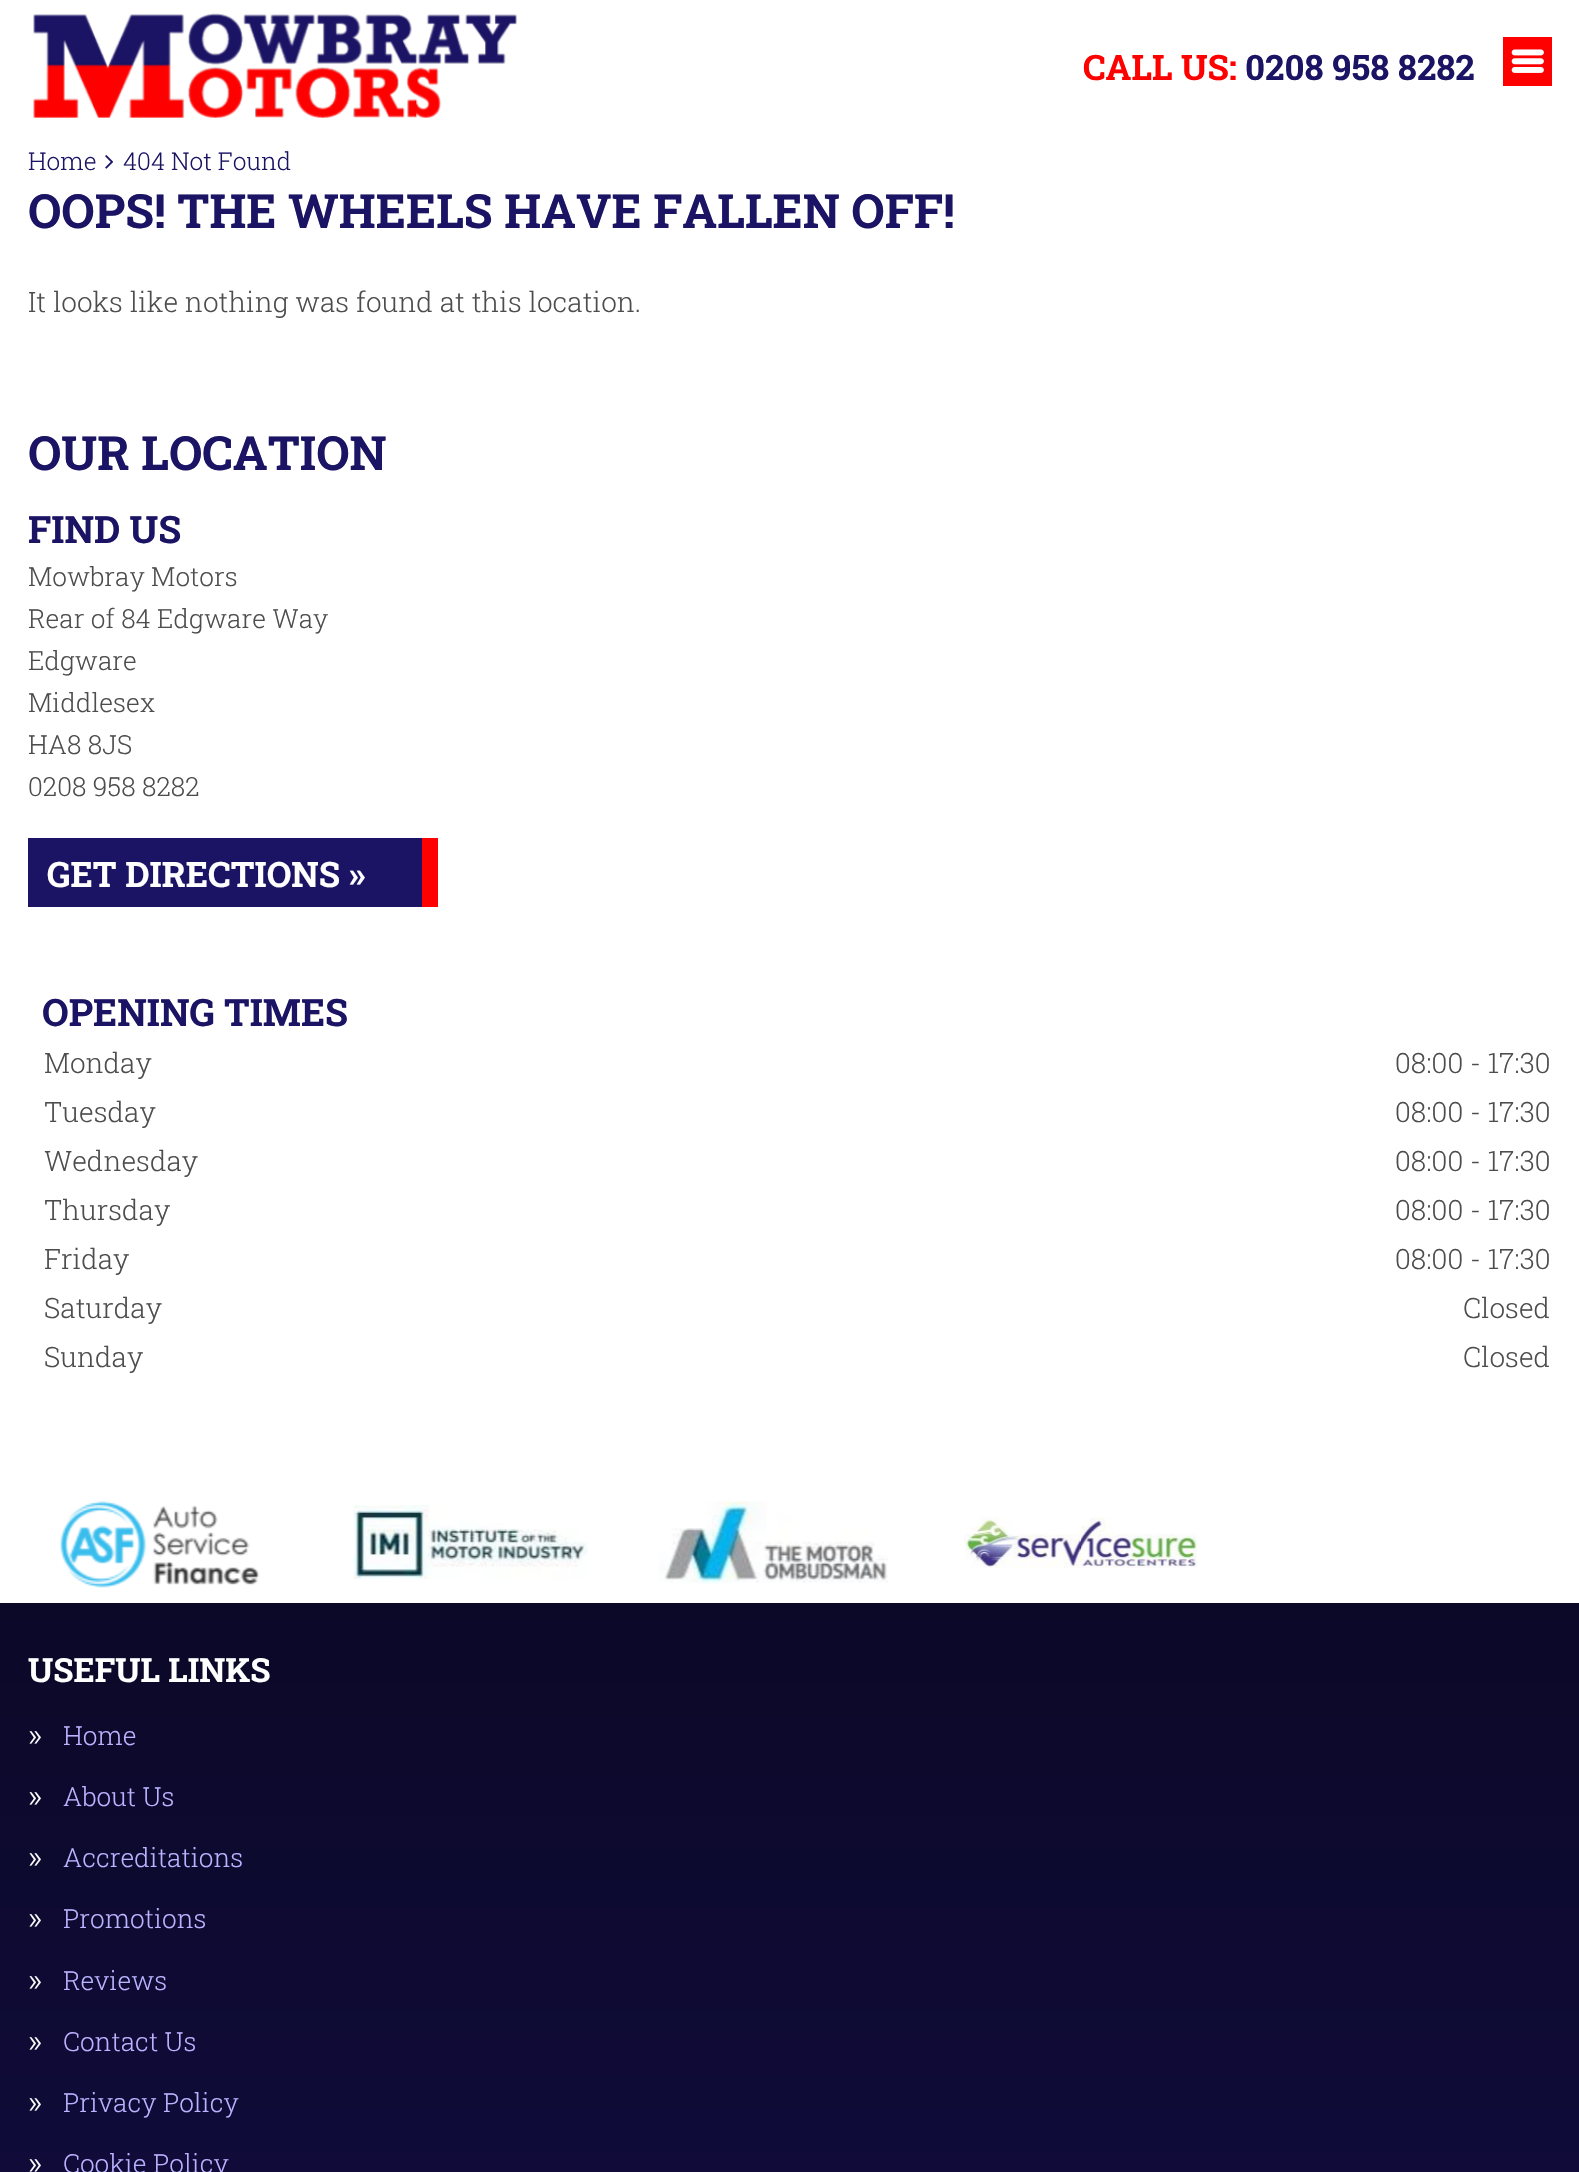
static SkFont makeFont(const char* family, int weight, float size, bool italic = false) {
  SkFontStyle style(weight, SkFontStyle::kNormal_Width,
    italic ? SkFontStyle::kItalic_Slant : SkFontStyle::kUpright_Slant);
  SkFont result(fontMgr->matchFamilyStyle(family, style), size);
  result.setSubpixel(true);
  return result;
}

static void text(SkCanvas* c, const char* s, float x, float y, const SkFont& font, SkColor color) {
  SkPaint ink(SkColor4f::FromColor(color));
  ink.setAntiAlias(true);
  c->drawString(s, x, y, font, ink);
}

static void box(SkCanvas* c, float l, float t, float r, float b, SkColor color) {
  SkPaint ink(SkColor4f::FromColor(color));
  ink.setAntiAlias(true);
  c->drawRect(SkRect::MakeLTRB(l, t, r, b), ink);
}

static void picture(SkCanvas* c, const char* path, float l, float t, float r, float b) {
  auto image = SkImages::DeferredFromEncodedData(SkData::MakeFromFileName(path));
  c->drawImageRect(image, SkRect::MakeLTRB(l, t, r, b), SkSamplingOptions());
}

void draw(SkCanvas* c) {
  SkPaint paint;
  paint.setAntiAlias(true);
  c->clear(0xffffffff);
  picture(c, "img_01.png", 33, 13, 517, 118);
  SkFont face1 = makeFont("Roboto Slab", 700, 35);
  text(c, "CALL US:", 1083, 80, face1, 0xffff0000);
  text(c, "0208 958 8282", 1245, 80, face1, 0xff1b1464);
  box(c, 1503, 37, 1552, 86, 0xffff0000);
  picture(c, "img_02.png", 1511, 49, 1544, 73);
  SkFont face2 = makeFont("Roboto Slab", 300, 24.5f);
  text(c, "Home", 28, 170, face2, 0xff1b1464);
  picture(c, "img_03.png", 105, 155, 114, 169);
  text(c, "404 Not Found", 123, 170, face2, 0xff1b1464);
  SkFont face3 = makeFont("Roboto Slab", 700, 47.25f);
  text(c, "OOPS! THE WHEELS HAVE FALLEN OFF!", 28, 228, face3, 0xff1b1464);
  SkFont face4 = makeFont("Roboto Slab", 300, 28);
  text(c, "It looks like nothing was found at this location.", 28, 312, face4, 0xff4d4d4d);
  text(c, "OUR LOCATION", 28, 470, face3, 0xff1b1464);
  SkFont face5 = makeFont("Roboto Slab", 700, 37.75f);
  text(c, "FIND US", 28, 543, face5, 0xff1b1464);
  SkFont face6 = makeFont("Roboto Slab", 300, 26.25f);
  text(c, "Mowbray Motors", 28, 586, face6, 0xff4d4d4d);
  text(c, "Rear of 84 Edgware Way", 28, 628, face6, 0xff4d4d4d);
  text(c, "Edgware", 28, 670, face6, 0xff4d4d4d);
  text(c, "Middlesex", 28, 712, face6, 0xff4d4d4d);
  text(c, "HA8 8JS", 28, 754, face6, 0xff4d4d4d);
  text(c, "0208 958 8282", 28, 796, face6, 0xff4d4d4d);
  box(c, 28, 838, 422, 907, 0xff1b1464);
  text(c, "GET DIRECTIONS »", 47, 887, face1, 0xffffffff);
  box(c, 422, 838, 438, 907, 0xffff0000);
  text(c, "OPENING TIMES", 42, 1026, face5, 0xff1b1464);
  text(c, "Monday", 44, 1073, face4, 0xff4d4d4d);
  text(c, "08:00 - 17:30", 1395, 1073, face4, 0xff4d4d4d);
  text(c, "Tuesday", 44, 1122, face4, 0xff4d4d4d);
  text(c, "08:00 - 17:30", 1395, 1122, face4, 0xff4d4d4d);
  text(c, "Wednesday", 44, 1171, face4, 0xff4d4d4d);
  text(c, "08:00 - 17:30", 1395, 1171, face4, 0xff4d4d4d);
  text(c, "Thursday", 44, 1220, face4, 0xff4d4d4d);
  text(c, "08:00 - 17:30", 1395, 1220, face4, 0xff4d4d4d);
  text(c, "Friday", 44, 1269, face4, 0xff4d4d4d);
  text(c, "08:00 - 17:30", 1395, 1269, face4, 0xff4d4d4d);
  text(c, "Saturday", 44, 1318, face4, 0xff4d4d4d);
  text(c, "Closed", 1463, 1318, face4, 0xff4d4d4d);
  text(c, "Sunday", 44, 1367, face4, 0xff4d4d4d);
  text(c, "Closed", 1463, 1367, face4, 0xff4d4d4d);
  picture(c, "img_04.png", 60, 1501, 260, 1588);
  picture(c, "img_05.png", 353, 1505, 588, 1580);
  picture(c, "img_06.png", 659, 1501, 888, 1584);
  picture(c, "img_07.png", 964, 1517, 1198, 1568);
  {
    const SkColor colors[] = {0xff0b0828, 0xff1b1464};
    const float stops[] = {0, 1};
    const SkPoint ends[] = {{790, 1603}, {790, 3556}};
    paint.setShader(SkGradientShader::MakeLinear(ends, colors, stops, 2, SkTileMode::kClamp));
    paint.setAlpha(255);
  }
  c->drawRect(SkRect::MakeLTRB(0, 1603, 1579, 2172), paint);
  SkFont face7 = makeFont("Roboto Slab", 700, 33.25f);
  text(c, "USEFUL LINKS", 28, 1682, face7, 0xffffffff);
  SkFont face8 = makeFont("Roboto Slab", 300, 32);
  text(c, "»", 28, 1746, face8, 0xffffffff);
  text(c, "Home", 63, 1745, face6, 0xffbab3ff);
  text(c, "»", 28, 1807, face8, 0xffffffff);
  text(c, "About Us", 63, 1806, face6, 0xffbab3ff);
  text(c, "»", 28, 1868, face8, 0xffffffff);
  text(c, "Accreditations", 63, 1867, face6, 0xffbab3ff);
  text(c, "»", 28, 1929, face8, 0xffffffff);
  text(c, "Promotions", 63, 1928, face6, 0xffbab3ff);
  text(c, "»", 28, 1991, face8, 0xffffffff);
  text(c, "Reviews", 63, 1990, face6, 0xffbab3ff);
  text(c, "»", 28, 2052, face8, 0xffffffff);
  text(c, "Contact Us", 63, 2051, face6, 0xffbab3ff);
  text(c, "»", 28, 2113, face8, 0xffffffff);
  text(c, "Privacy Policy", 63, 2112, face6, 0xffbab3ff);
  text(c, "»", 28, 2174, face8, 0xffffffff);
  text(c, "Cookie Policy", 63, 2173, face6, 0xffbab3ff);
}
